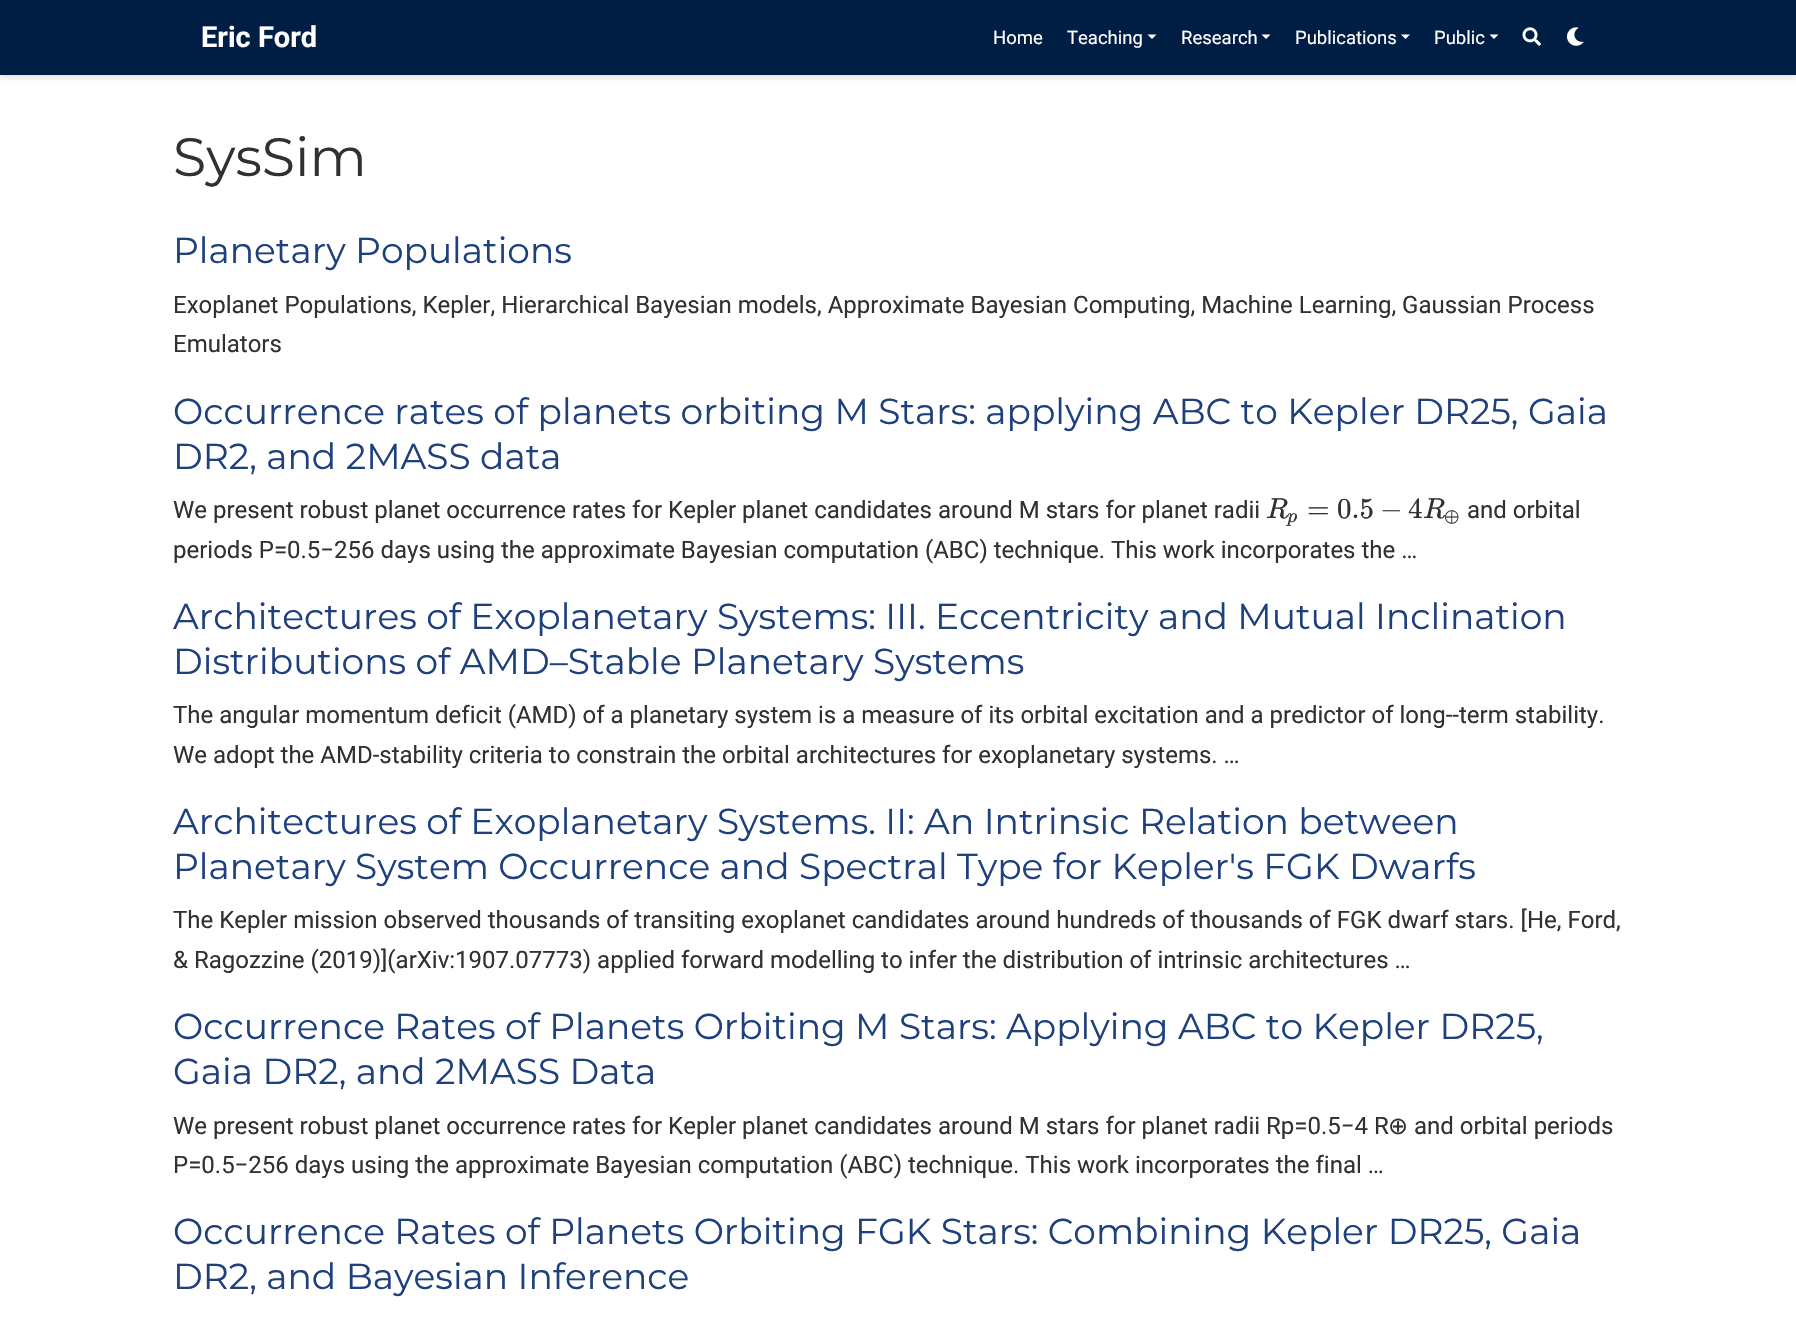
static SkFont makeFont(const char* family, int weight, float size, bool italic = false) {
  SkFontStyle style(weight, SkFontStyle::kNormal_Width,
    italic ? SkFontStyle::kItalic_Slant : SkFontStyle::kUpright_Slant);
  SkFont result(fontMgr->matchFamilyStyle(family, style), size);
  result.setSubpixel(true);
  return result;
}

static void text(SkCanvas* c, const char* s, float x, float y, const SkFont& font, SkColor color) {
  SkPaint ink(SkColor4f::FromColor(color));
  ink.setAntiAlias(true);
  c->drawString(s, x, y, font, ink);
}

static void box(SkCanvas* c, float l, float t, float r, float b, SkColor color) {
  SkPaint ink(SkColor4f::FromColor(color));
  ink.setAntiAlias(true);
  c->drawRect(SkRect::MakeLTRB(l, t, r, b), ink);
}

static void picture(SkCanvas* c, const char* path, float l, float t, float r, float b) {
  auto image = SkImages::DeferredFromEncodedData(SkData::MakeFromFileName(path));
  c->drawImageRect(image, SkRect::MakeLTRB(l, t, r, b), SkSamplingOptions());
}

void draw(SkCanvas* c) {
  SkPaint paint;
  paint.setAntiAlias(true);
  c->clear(0xffffffff);
  paint.setColor(0x1c000000);
  paint.setMaskFilter(SkMaskFilter::MakeBlur(kNormal_SkBlurStyle, 3));
  c->drawRect(SkRect::MakeLTRB(0, 3, 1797, 78), paint);
  paint.setMaskFilter(nullptr);
  box(c, 0, 0, 1796, 75, 0xff001e44);
  SkFont face1 = makeFont("Roboto", 700, 29);
  text(c, "Eric Ford", 201, 47, face1, 0xffffffff);
  SkFont face2 = makeFont("Roboto", 400, 18.5f);
  text(c, "Home", 993, 44, face2, 0xffffffff);
  text(c, "Teaching", 1067, 44, face2, 0xffffffff);
  paint.setColor(0xffffffff);
  c->drawPath(SkPathBuilder().moveTo(1147.5f, 34.5f).lineTo(1156.5f, 34.5f).lineTo(1152, 39).close().detach(), paint);
  text(c, "Research", 1181, 44, face2, 0xffffffff);
  c->drawPath(SkPathBuilder().moveTo(1261.5f, 34.5f).lineTo(1270.5f, 34.5f).lineTo(1266, 39).close().detach(), paint);
  text(c, "Publications", 1295, 44, face2, 0xffffffff);
  c->drawPath(SkPathBuilder().moveTo(1401, 34.5f).lineTo(1410, 34.5f).lineTo(1405.5f, 39).close().detach(), paint);
  text(c, "Public", 1434, 44, face2, 0xffffffff);
  c->drawPath(SkPathBuilder().moveTo(1489.5f, 34.5f).lineTo(1498.5f, 34.5f).lineTo(1494, 39).close().detach(), paint);
  picture(c, "img_01.png", 1522, 27, 1541, 46);
  picture(c, "img_02.png", 1567, 27, 1584, 46);
  SkFont face3 = makeFont("Montserrat", 400, 54);
  text(c, "SysSim", 173, 176, face3, 0xff313131);
  SkFont face4 = makeFont("Montserrat", 400, 36);
  text(c, "Planetary Populations", 173, 263, face4, 0xff1e407c);
  SkFont face5 = makeFont("Roboto", 400, 24);
  text(c, "Exoplanet Populations, Kepler, Hierarchical Bayesian models, Approximate Bayesian Computing, Machine Learning, Gaussian Process", 173, 313, face5, 0xff313131);
  text(c, "Emulators", 173, 352, face5, 0xff313131);
  text(c, "Occurrence rates of planets orbiting M Stars: applying ABC to Kepler DR25, Gaia", 173, 424, face4, 0xff1e407c);
  text(c, "DR2, and 2MASS data", 173, 469, face4, 0xff1e407c);
  text(c, "We present robust planet occurrence rates for Kepler planet candidates around M stars for planet radii", 173, 518, face5, 0xff313131);
  SkFont face6 = makeFont("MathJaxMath", 400, 29, true);
  text(c, "R", 1266, 518, face6, 0xff313131);
  SkFont face7 = makeFont("MathJaxMath", 400, 20, true);
  text(c, "p", 1287, 522, face7, 0xff313131);
  SkFont face8 = makeFont("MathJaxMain", 400, 29);
  text(c, "=", 1307, 518, face8, 0xff313131);
  text(c, "0.5", 1337, 518, face8, 0xff313131);
  text(c, "−", 1380, 518, face8, 0xff313131);
  text(c, "4", 1408, 518, face8, 0xff313131);
  text(c, "R", 1423, 518, face6, 0xff313131);
  SkFont face9 = makeFont("MathJaxMain", 400, 20);
  text(c, "⊕", 1444, 522, face9, 0xff313131);
  text(c, "and orbital", 1467, 518, face5, 0xff313131);
  text(c, "periods P=0.5−256 days using the approximate Bayesian computation (ABC) technique. This work incorporates the …", 173, 558, face5, 0xff313131);
  text(c, "Architectures of Exoplanetary Systems: III. Eccentricity and Mutual Inclination", 173, 629, face4, 0xff1e407c);
  text(c, "Distributions of AMD–Stable Planetary Systems", 173, 674, face4, 0xff1e407c);
  text(c, "The angular momentum deficit (AMD) of a planetary system is a measure of its orbital excitation and a predictor of long--term stability.", 173, 723, face5, 0xff313131);
  text(c, "We adopt the AMD-stability criteria to constrain the orbital architectures for exoplanetary systems. …", 173, 763, face5, 0xff313131);
  text(c, "Architectures of Exoplanetary Systems. II: An Intrinsic Relation between", 173, 834, face4, 0xff1e407c);
  text(c, "Planetary System Occurrence and Spectral Type for Kepler's FGK Dwarfs", 173, 879, face4, 0xff1e407c);
  text(c, "The Kepler mission observed thousands of transiting exoplanet candidates around hundreds of thousands of FGK dwarf stars. [He, Ford,", 173, 928, face5, 0xff313131);
  text(c, "& Ragozzine (2019)](arXiv:1907.07773) applied forward modelling to infer the distribution of intrinsic architectures …", 173, 968, face5, 0xff313131);
  text(c, "Occurrence Rates of Planets Orbiting M Stars: Applying ABC to Kepler DR25,", 173, 1039, face4, 0xff1e407c);
  text(c, "Gaia DR2, and 2MASS Data", 173, 1084, face4, 0xff1e407c);
  text(c, "We present robust planet occurrence rates for Kepler planet candidates around M stars for planet radii Rp=0.5−4 R", 173, 1134, face5, 0xff313131);
  SkFont face10 = makeFont("DejaVu Sans", 400, 24);
  text(c, "⊕", 1388, 1134, face10, 0xff313131);
  text(c, "and orbital periods", 1414, 1134, face5, 0xff313131);
  text(c, "P=0.5−256 days using the approximate Bayesian computation (ABC) technique. This work incorporates the final …", 173, 1173, face5, 0xff313131);
  text(c, "Occurrence Rates of Planets Orbiting FGK Stars: Combining Kepler DR25, Gaia", 173, 1244, face4, 0xff1e407c);
  text(c, "DR2, and Bayesian Inference", 173, 1289, face4, 0xff1e407c);
}
